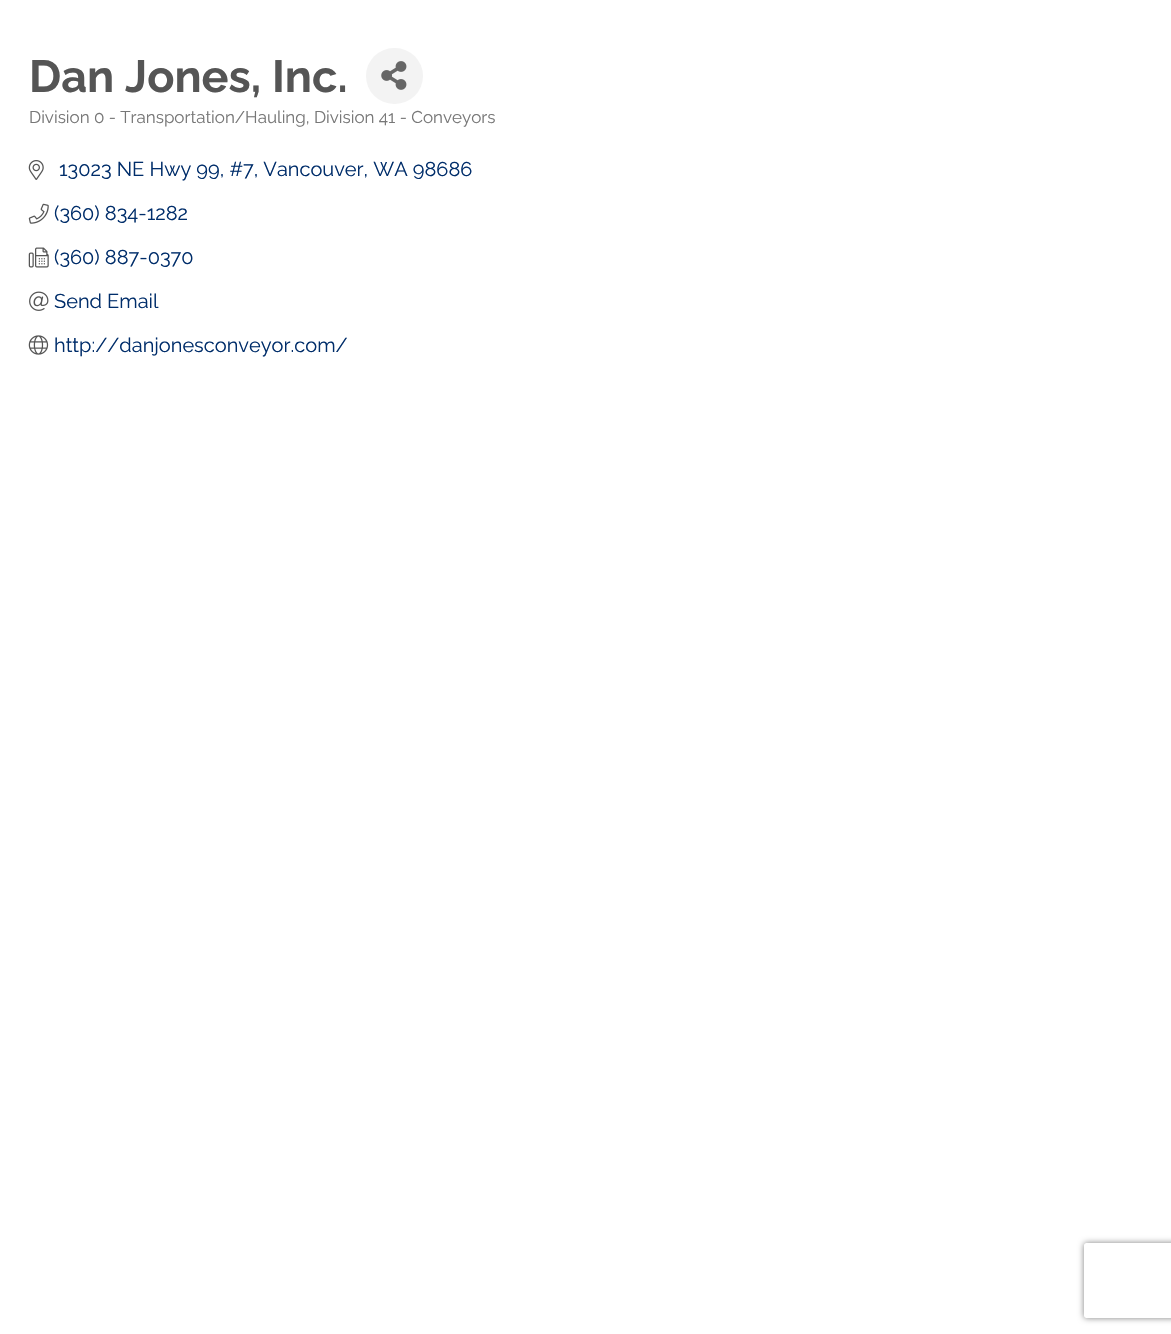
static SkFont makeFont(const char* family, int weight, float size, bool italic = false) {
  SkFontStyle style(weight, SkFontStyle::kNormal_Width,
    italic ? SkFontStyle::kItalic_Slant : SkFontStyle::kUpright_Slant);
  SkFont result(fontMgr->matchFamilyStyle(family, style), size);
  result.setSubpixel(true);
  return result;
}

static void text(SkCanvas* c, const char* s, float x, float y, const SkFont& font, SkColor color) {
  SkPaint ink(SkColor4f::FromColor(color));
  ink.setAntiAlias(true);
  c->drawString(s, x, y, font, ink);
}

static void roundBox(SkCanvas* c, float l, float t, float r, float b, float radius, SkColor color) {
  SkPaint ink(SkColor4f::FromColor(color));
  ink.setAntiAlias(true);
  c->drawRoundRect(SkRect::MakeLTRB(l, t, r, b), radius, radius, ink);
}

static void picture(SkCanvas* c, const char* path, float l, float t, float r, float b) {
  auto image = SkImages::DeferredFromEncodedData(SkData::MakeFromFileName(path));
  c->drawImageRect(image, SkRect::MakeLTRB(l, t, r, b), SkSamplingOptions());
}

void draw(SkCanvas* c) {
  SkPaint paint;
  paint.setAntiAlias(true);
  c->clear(0xffffffff);
  SkFont face1 = makeFont("Raleway", 700, 45);
  text(c, "Dan Jones, Inc.", 29, 92, face1, 0xff555555);
  roundBox(c, 366, 48, 423, 104, 28, 0xfff3f3f3);
  picture(c, "img_01.png", 381, 61, 407, 90);
  SkFont face2 = makeFont("Raleway", 400, 17);
  text(c, "Division 0 - Transportation/Hauling, Division 41 - Conveyors", 29, 123, face2, 0xff777777);
  picture(c, "img_02.png", 28, 160, 44, 180);
  SkFont face3 = makeFont("Raleway", 400, 20);
  text(c, "13023 NE Hwy 99, #7, Vancouver, WA 98686", 59, 176, face3, 0xff002d6a);
  picture(c, "img_03.png", 28, 203, 49, 224);
  text(c, "(360) 834-1282", 54, 220, face3, 0xff002d6a);
  picture(c, "img_04.png", 28, 247, 49, 268);
  text(c, "(360) 887-0370", 54, 264, face3, 0xff002d6a);
  picture(c, "img_05.png", 29, 291, 49, 311);
  text(c, "Send Email", 54, 308, face3, 0xff002d6a);
  picture(c, "img_06.png", 28, 335, 49, 355);
  text(c, "http://danjonesconveyor.com/", 54, 352, face3, 0xff002d6a);
  c->save();
  c->clipPath(SkPathBuilder(SkPathFillType::kEvenOdd).moveTo(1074, 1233).lineTo(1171, 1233).lineTo(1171, 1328).lineTo(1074, 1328).close().moveTo(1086.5f, 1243).lineTo(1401.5f, 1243).cubicTo(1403, 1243, 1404, 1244, 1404, 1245.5f).lineTo(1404, 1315.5f).cubicTo(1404, 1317, 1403, 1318, 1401.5f, 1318).lineTo(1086.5f, 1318).cubicTo(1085, 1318, 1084, 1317, 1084, 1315.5f).lineTo(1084, 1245.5f).cubicTo(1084, 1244, 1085, 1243, 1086.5f, 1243).close().detach(), true);
  paint.setColor(0xff808080);
  paint.setMaskFilter(SkMaskFilter::MakeBlur(kNormal_SkBlurStyle, 3));
  c->drawRoundRect(SkRect::MakeLTRB(1084, 1243, 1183, 1318), 2.5f, 2.5f, paint);
  paint.setMaskFilter(nullptr);
  c->restore();
}
